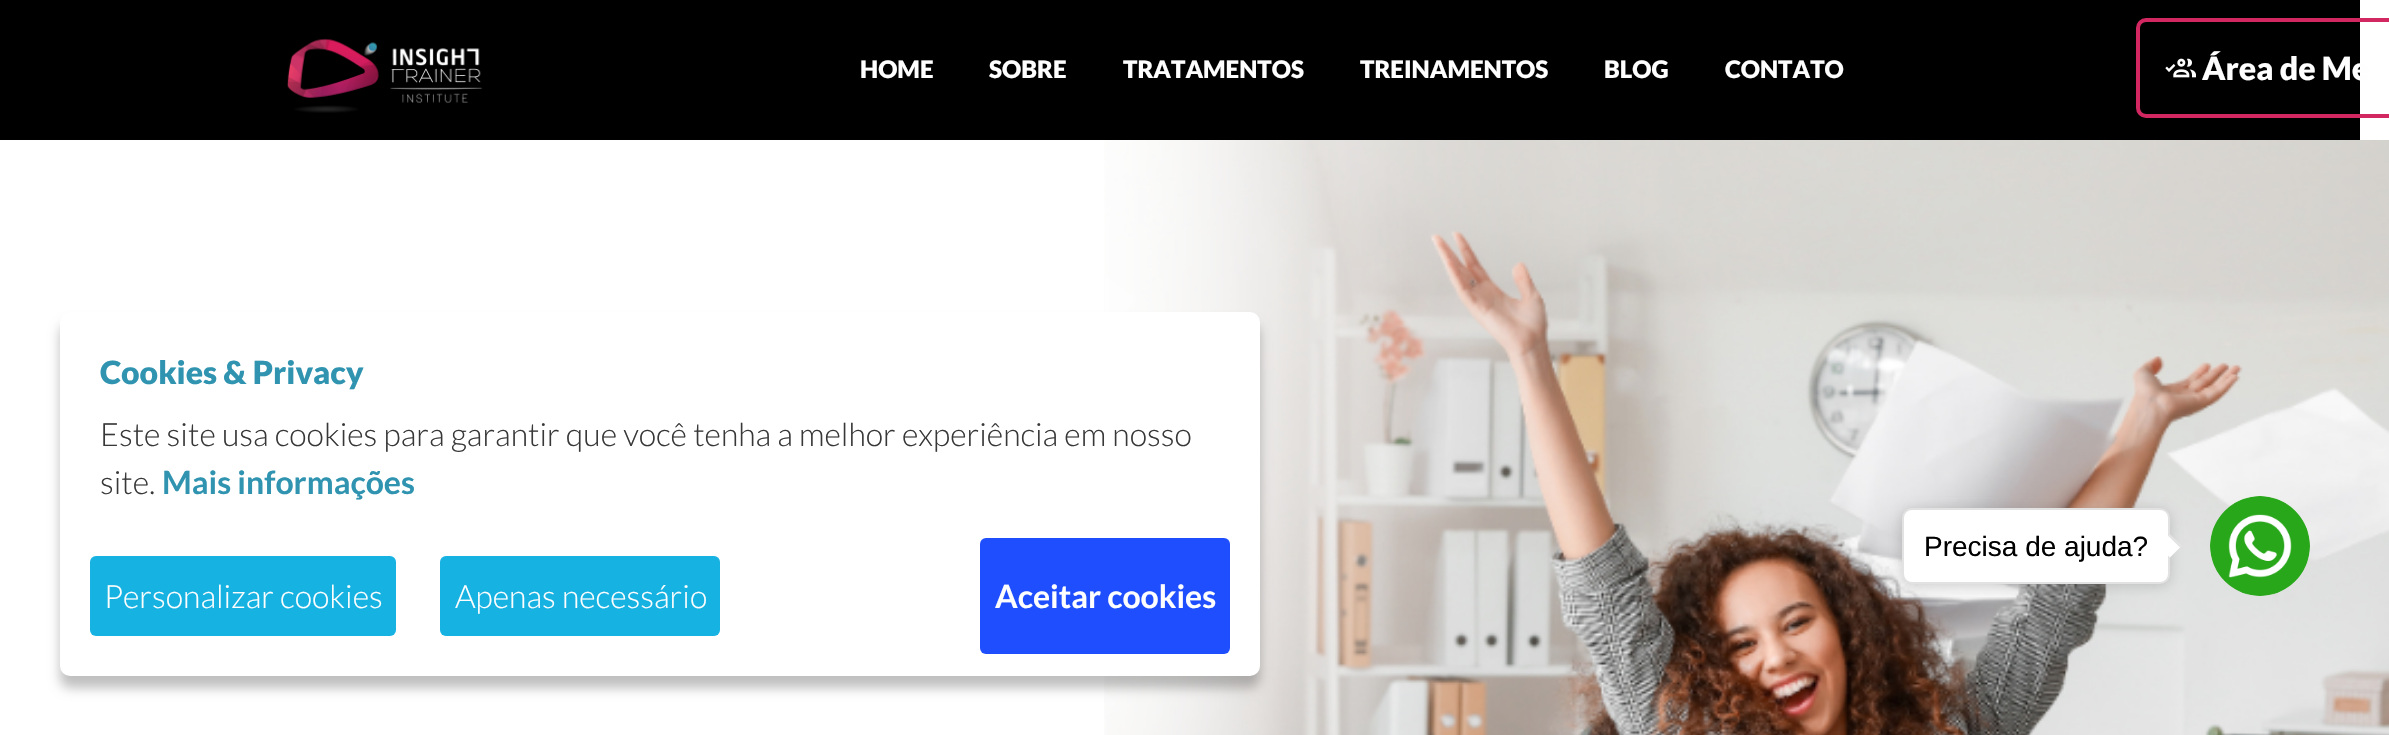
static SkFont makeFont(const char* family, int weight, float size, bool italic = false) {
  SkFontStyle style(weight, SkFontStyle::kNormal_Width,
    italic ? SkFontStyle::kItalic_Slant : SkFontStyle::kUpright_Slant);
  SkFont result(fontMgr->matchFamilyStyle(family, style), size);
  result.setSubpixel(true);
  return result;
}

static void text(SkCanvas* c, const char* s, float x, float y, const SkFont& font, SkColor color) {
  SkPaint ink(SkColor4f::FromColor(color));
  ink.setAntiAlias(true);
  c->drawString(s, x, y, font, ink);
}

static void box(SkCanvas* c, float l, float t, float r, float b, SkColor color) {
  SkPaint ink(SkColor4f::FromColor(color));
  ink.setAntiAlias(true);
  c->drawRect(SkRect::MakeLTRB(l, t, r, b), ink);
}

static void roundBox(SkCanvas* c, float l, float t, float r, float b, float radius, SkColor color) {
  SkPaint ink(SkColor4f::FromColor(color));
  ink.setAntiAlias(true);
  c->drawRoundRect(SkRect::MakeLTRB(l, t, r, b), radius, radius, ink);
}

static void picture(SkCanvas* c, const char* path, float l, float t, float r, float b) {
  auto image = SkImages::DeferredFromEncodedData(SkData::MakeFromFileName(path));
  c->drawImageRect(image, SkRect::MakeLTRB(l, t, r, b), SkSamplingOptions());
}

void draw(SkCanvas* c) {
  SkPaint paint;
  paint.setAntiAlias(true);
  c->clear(0xffffffff);
  picture(c, "img_03.png", 1104, 140, 2389, 735);
  paint.setColor(0x40000000);
  paint.setMaskFilter(SkMaskFilter::MakeBlur(kNormal_SkBlurStyle, 6));
  c->drawRoundRect(SkRect::MakeLTRB(60, 324, 1260, 688), 10, 10, paint);
  paint.setMaskFilter(nullptr);
  roundBox(c, 60, 312, 1260, 676, 10, 0xffffffff);
  SkFont face1 = makeFont("Lato", 900, 32);
  text(c, "Cookies & Privacy", 100, 384, face1, 0xff3094b1);
  SkFont face2 = makeFont("Lato", 300, 32);
  text(c, "Este site usa cookies para garantir que você tenha a melhor experiência em nosso", 100, 446, face2, 0xff383838);
  text(c, "site.", 100, 494, face2, 0xff383838);
  SkFont face3 = makeFont("Lato", 700, 32);
  text(c, "Mais informações", 162, 494, face3, 0xff3094b1);
  roundBox(c, 90, 556, 396, 636, 6, 0xff15b2e2);
  text(c, "Personalizar cookies", 104, 608, face2, 0xfffefefe);
  roundBox(c, 440, 556, 720, 636, 6, 0xff15b2e2);
  text(c, "Apenas necessário", 455, 608, face2, 0xfffefefe);
  roundBox(c, 980, 538, 1230, 654, 6, 0xff1f4efe);
  text(c, "Aceitar cookies", 995, 608, face3, 0xfffefefe);
  box(c, 0, 0, 2360, 140, 0xff000000);
  picture(c, "img_01.png", 287, 38, 483, 113);
  SkFont face4 = makeFont("Lato", 900, 24);
  text(c, "HOME", 860, 78, face4, 0xfffefefe);
  text(c, "SOBRE", 989, 78, face4, 0xfffefefe);
  text(c, "TRATAMENTOS", 1123, 78, face4, 0xfffefefe);
  text(c, "TREINAMENTOS", 1360, 78, face4, 0xfffefefe);
  text(c, "BLOG", 1604, 78, face4, 0xfffefefe);
  text(c, "CONTATO", 1725, 78, face4, 0xfffefefe);
  paint.setStyle(SkPaint::kStroke_Style);
  paint.setStrokeWidth(4);
  paint.setColor(0xffd22760);
  c->drawRoundRect(SkRect::MakeLTRB(2138, 20, 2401, 116), 8, 8, paint);
  picture(c, "img_02.png", 2165, 58, 2196, 78);
  text(c, "Área de Me", 2202, 80, face1, 0xfffefefe);
  paint.setStyle(SkPaint::kFill_Style);
  paint.setColor(0x66888888);
  paint.setMaskFilter(SkMaskFilter::MakeBlur(kNormal_SkBlurStyle, 7));
  c->drawRoundRect(SkRect::MakeLTRB(1902, 510, 2170, 586), 10, 10, paint);
  paint.setMaskFilter(nullptr);
  paint.setColor(0xffffffff);
  c->drawRoundRect(SkRect::MakeLTRB(1903, 509, 2169, 583), 9, 9, paint);
  paint.setStyle(SkPaint::kStroke_Style);
  paint.setStrokeWidth(2);
  paint.setColor(0xffe2e2e2);
  c->drawRoundRect(SkRect::MakeLTRB(1903, 509, 2169, 583), 9, 9, paint);
  SkFont face5 = makeFont("Liberation Sans", 400, 28);
  text(c, "Precisa de ajuda?", 1924, 556, face5, 0xff000000);
  paint.setStyle(SkPaint::kFill_Style);
  paint.setColor(0xffffffff);
  c->drawPath(SkPathBuilder().moveTo(2158.5f, 546).lineTo(2170, 534.5f).lineTo(2181.5f, 546).lineTo(2170, 557.5f).close().detach(), paint);
  paint.setColor(0xffe2e2e2);
  c->drawPath(SkPathBuilder().moveTo(2168.5f, 536).lineTo(2170, 534.5f).lineTo(2181.5f, 546).lineTo(2180, 547.5f).close().detach(), paint);
  picture(c, "img_04.png", 2210, 496, 2310, 596);
}
